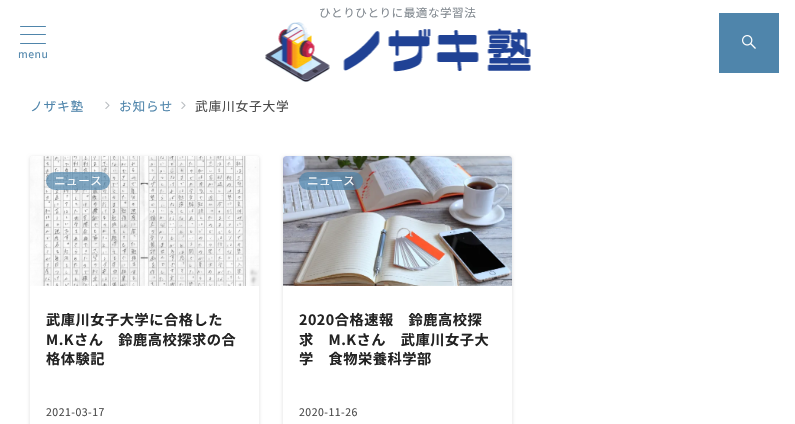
static SkFont makeFont(const char* family, int weight, float size, bool italic = false) {
  SkFontStyle style(weight, SkFontStyle::kNormal_Width,
    italic ? SkFontStyle::kItalic_Slant : SkFontStyle::kUpright_Slant);
  SkFont result(fontMgr->matchFamilyStyle(family, style), size);
  result.setSubpixel(true);
  return result;
}

static void spacedText(SkCanvas* c, const char* s, float x, float y, const SkFont& font, const SkPaint& ink, float letter, float word) {
  std::vector<SkGlyphID> glyphs(font.countText(s, strlen(s), SkTextEncoding::kUTF8));
  std::vector<float> xs(glyphs.size());
  font.textToGlyphs(s, strlen(s), SkTextEncoding::kUTF8, glyphs);
  font.getXPos(glyphs, xs, x);
  float extra = 0;
  for (size_t i = 0; i < glyphs.size(); i++) {
    xs[i] += extra;
    extra += letter + word * (glyphs[i] == font.unicharToGlyph(' '));
  }
  c->drawTextBlob(SkTextBlob::MakeFromPosHGlyphs(glyphs, xs, y, font), 0, 0, ink);
}

static void box(SkCanvas* c, float l, float t, float r, float b, SkColor color) {
  SkPaint ink(SkColor4f::FromColor(color));
  ink.setAntiAlias(true);
  c->drawRect(SkRect::MakeLTRB(l, t, r, b), ink);
}

static void roundBox(SkCanvas* c, float l, float t, float r, float b, float radius, SkColor color) {
  SkPaint ink(SkColor4f::FromColor(color));
  ink.setAntiAlias(true);
  c->drawRoundRect(SkRect::MakeLTRB(l, t, r, b), radius, radius, ink);
}

static void picture(SkCanvas* c, const char* path, float l, float t, float r, float b) {
  auto image = SkImages::DeferredFromEncodedData(SkData::MakeFromFileName(path));
  c->drawImageRect(image, SkRect::MakeLTRB(l, t, r, b), SkSamplingOptions());
}

void draw(SkCanvas* c) {
  SkPaint paint;
  paint.setAntiAlias(true);
  c->clear(0xffffffff);
  roundBox(c, 20, 26, 46, 27, 0.5f, 0xff4f85ab);
  roundBox(c, 20, 34, 46, 35, 0.5f, 0xff4f85ab);
  roundBox(c, 20, 43, 46, 44, 0.5f, 0xff4f85ab);
  SkFont face1 = makeFont("Noto Sans JP", 400, 10.5f);
  paint.setColor(0xff4f85ab);
  spacedText(c, "menu", 18, 58, face1, paint, 0.5f, 0);
  SkFont face2 = makeFont("Noto Sans JP", 400, 11.6f);
  paint.setColor(0xff828990);
  spacedText(c, "ひとりひとりに最適な学習法", 319, 17, face2, paint, 0.5f, 0);
  picture(c, "img_01.png", 265, 22, 531, 82);
  box(c, 719, 13, 779, 73, 0xff4f85ab);
  picture(c, "img_02.png", 742, 35, 756, 49);
  SkFont face3 = makeFont("Noto Sans JP", 400, 12.75f);
  paint.setColor(0xff4f85ab);
  spacedText(c, "ノザキ塾", 30, 111, face3, paint, 0.75f, 0);
  picture(c, "img_03.png", 105, 101, 110, 109);
  spacedText(c, "お知らせ", 119, 111, face3, paint, 0.75f, 0);
  picture(c, "img_03.png", 181, 101, 186, 109);
  paint.setColor(0xff484848);
  spacedText(c, "武庫川女子大学", 195, 111, face3, paint, 0.75f, 0);
  paint.setColor(0x14000000);
  paint.setMaskFilter(SkMaskFilter::MakeBlur(kNormal_SkBlurStyle, 1.5f));
  c->drawRoundRect(SkRect::MakeLTRB(29, 156, 260, 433), 4, 4, paint);
  paint.setMaskFilter(nullptr);
  roundBox(c, 30, 156, 259, 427, 3, 0xffffffff);
  picture(c, "img_04.png", 30, 156, 259, 286);
  roundBox(c, 46, 172, 110, 190, 9, 0xb34f85ab);
  paint.setColor(0xffffffff);
  spacedText(c, "ニュース", 54, 185, face2, paint, 0.5f, 0);
  SkFont face4 = makeFont("Noto Sans JP", 700, 14.25f);
  paint.setColor(0xff222222);
  spacedText(c, "武庫川女子大学に合格した", 46, 325, face4, paint, 0.5f, 0);
  spacedText(c, "M.Kさん　鈴鹿高校探求の合", 46, 345, face4, paint, 0.5f, 0);
  spacedText(c, "格体験記", 46, 364, face4, paint, 0.5f, 0);
  paint.setColor(0xff484848);
  spacedText(c, "2021-03-17", 46, 416, face1, paint, 0.5f, 0);
  paint.setColor(0x14000000);
  paint.setMaskFilter(SkMaskFilter::MakeBlur(kNormal_SkBlurStyle, 1.5f));
  c->drawRoundRect(SkRect::MakeLTRB(282, 156, 513, 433), 4, 4, paint);
  paint.setMaskFilter(nullptr);
  roundBox(c, 283, 156, 512, 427, 3, 0xffffffff);
  picture(c, "img_05.png", 283, 156, 512, 286);
  roundBox(c, 299, 172, 363, 190, 9, 0xb34f85ab);
  paint.setColor(0xffffffff);
  spacedText(c, "ニュース", 307, 185, face2, paint, 0.5f, 0);
  paint.setColor(0xff222222);
  spacedText(c, "2020合格速報　鈴鹿高校探", 299, 325, face4, paint, 0.5f, 0);
  spacedText(c, "求　M.Kさん　武庫川女子大", 299, 345, face4, paint, 0.5f, 0);
  spacedText(c, "学　食物栄養科学部", 299, 364, face4, paint, 0.5f, 0);
  paint.setColor(0xff484848);
  spacedText(c, "2020-11-26", 299, 416, face1, paint, 0.5f, 0);
}
